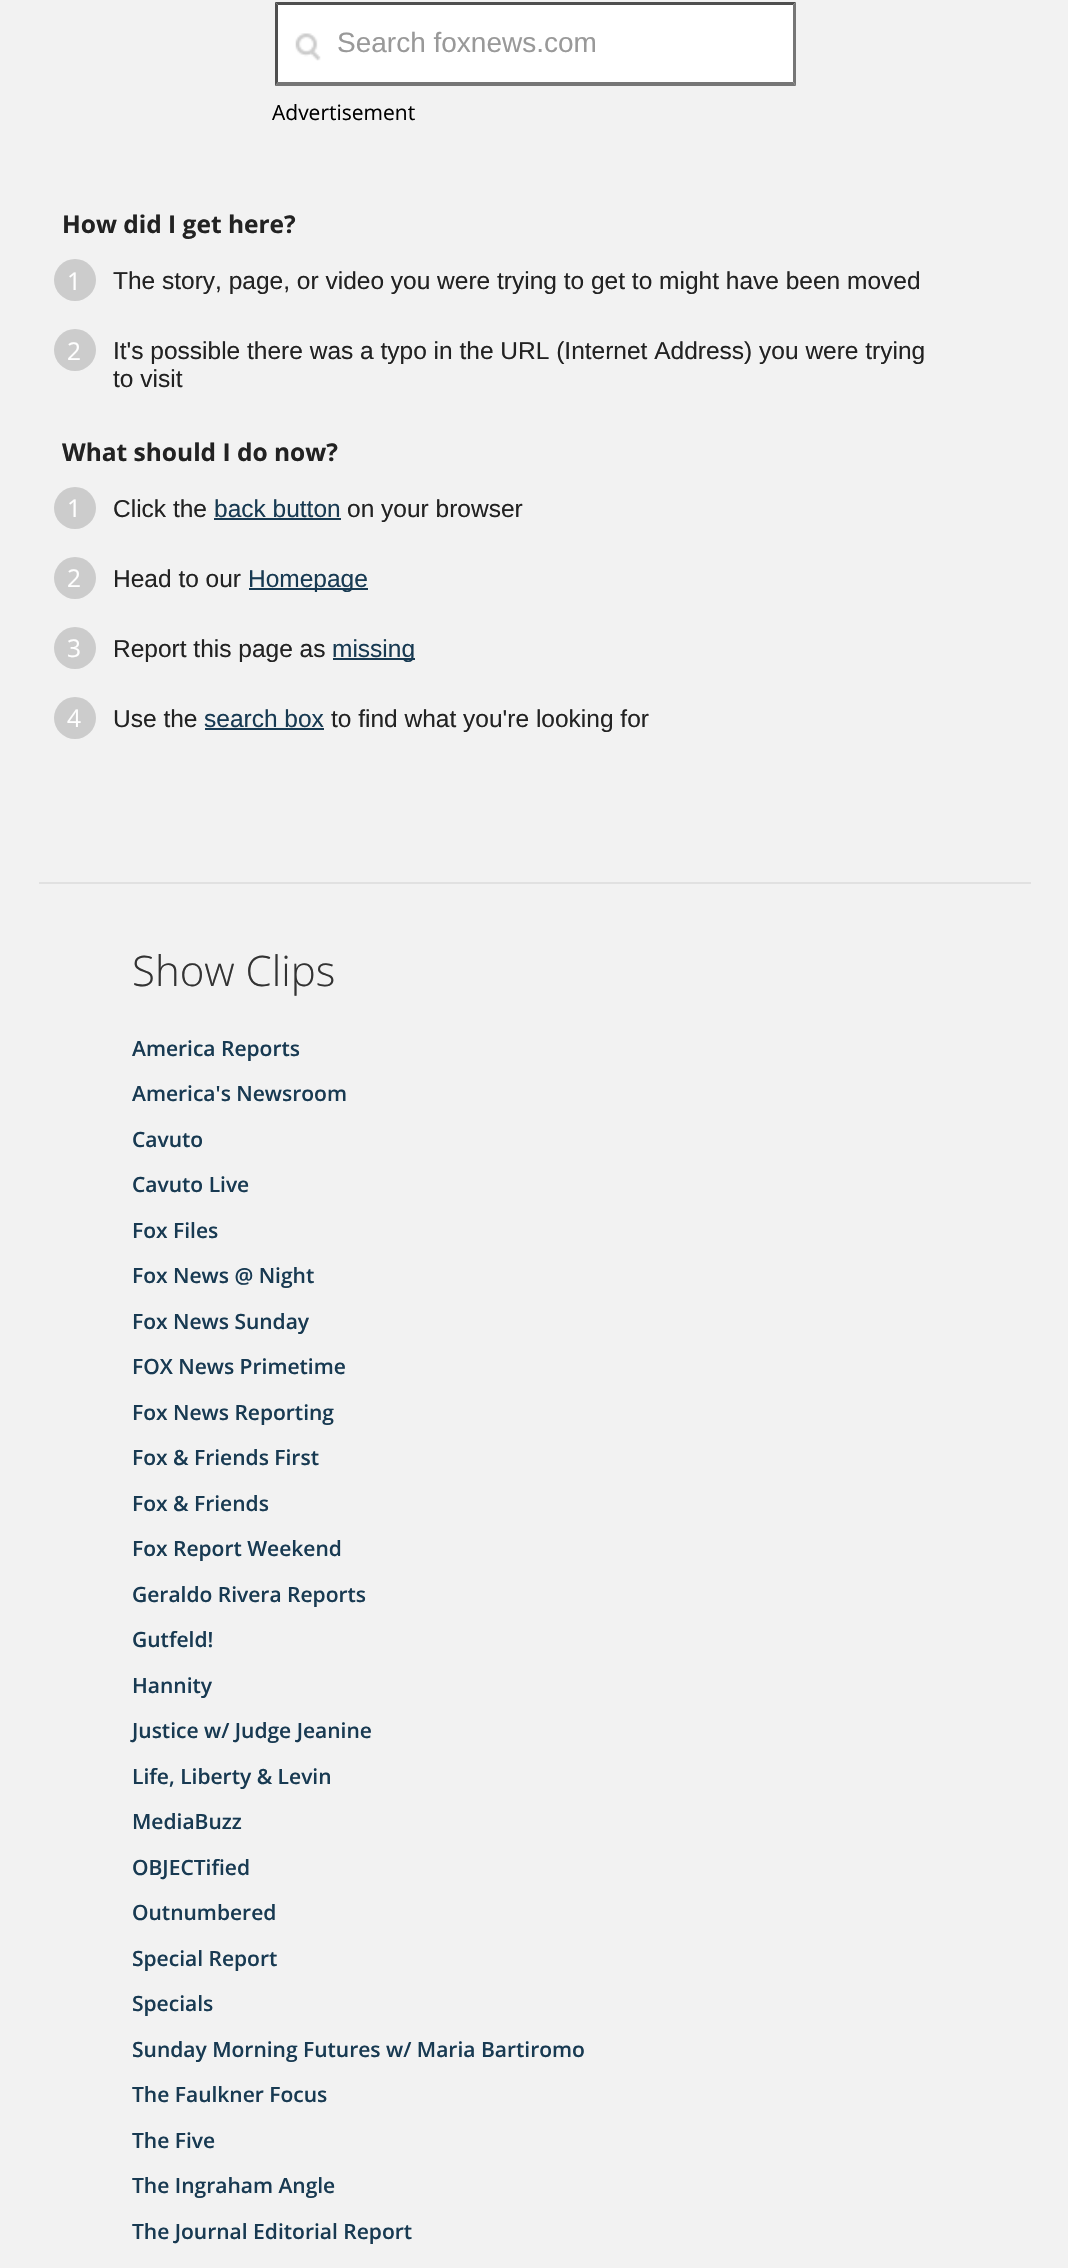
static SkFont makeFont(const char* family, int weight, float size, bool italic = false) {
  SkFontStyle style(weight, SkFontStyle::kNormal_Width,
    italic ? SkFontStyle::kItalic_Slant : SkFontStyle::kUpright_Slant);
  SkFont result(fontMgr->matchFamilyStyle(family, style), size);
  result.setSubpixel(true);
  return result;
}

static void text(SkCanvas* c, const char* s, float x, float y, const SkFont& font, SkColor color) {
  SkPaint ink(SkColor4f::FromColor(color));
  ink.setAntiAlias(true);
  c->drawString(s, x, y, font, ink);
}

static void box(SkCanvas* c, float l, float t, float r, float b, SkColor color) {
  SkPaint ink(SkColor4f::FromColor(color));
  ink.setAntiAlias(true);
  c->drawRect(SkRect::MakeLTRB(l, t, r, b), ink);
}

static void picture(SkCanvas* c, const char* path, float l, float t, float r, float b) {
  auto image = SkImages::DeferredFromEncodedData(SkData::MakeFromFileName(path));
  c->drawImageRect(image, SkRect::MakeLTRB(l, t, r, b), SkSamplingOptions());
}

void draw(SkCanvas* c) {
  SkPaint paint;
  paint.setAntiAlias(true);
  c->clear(0xfff2f2f2);
  box(c, 275, 2, 796, 86, 0xffffffff);
  picture(c, "img_01.png", 295, 33, 321, 61);
  paint.setColor(0xff4f4f4f);
  c->drawPath(SkPathBuilder().moveTo(275, 2).lineTo(796, 2).lineTo(793, 5).lineTo(278, 5).close().detach(), paint);
  paint.setColor(0xff767676);
  c->drawPath(SkPathBuilder().moveTo(796, 2).lineTo(796, 86).lineTo(793, 82).lineTo(793, 5).close().detach(), paint);
  c->drawPath(SkPathBuilder().moveTo(796, 86).lineTo(275, 86).lineTo(278, 82).lineTo(793, 82).close().detach(), paint);
  paint.setColor(0xff4f4f4f);
  c->drawPath(SkPathBuilder().moveTo(275, 86).lineTo(275, 2).lineTo(278, 5).lineTo(278, 82).close().detach(), paint);
  SkFont face1 = makeFont("Liberation Sans", 400, 28);
  text(c, "Search foxnews.com", 337, 52, face1, 0xff999999);
  SkFont face2 = makeFont("Open Sans", 400, 21);
  text(c, "Advertisement", 272, 120, face2, 0xff000000);
  SkFont face3 = makeFont("Open Sans", 700, 24.5f);
  text(c, "How did I get here?", 62, 233, face3, 0xff222222);
  paint.setColor(0xffcccccc);
  c->drawCircle(75, 280, 21, paint);
  SkFont face4 = makeFont("Open Sans", 400, 24.5f);
  text(c, "1", 67, 290, face4, 0xffffffff);
  SkFont face5 = makeFont("Liberation Sans", 400, 24.5f);
  text(c, "The story, page, or video you were trying to get to might have been moved", 113, 289, face5, 0xff222222);
  c->drawCircle(75, 350, 21, paint);
  text(c, "2", 67, 360, face4, 0xffffffff);
  text(c, "It's possible there was a typo in the URL (Internet Address) you were trying", 113, 359, face5, 0xff222222);
  text(c, "to visit", 113, 387, face5, 0xff222222);
  text(c, "What should I do now?", 62, 461, face3, 0xff222222);
  c->drawCircle(75, 508, 21, paint);
  text(c, "1", 67, 517, face4, 0xffffffff);
  text(c, "Click the", 113, 517, face5, 0xff222222);
  text(c, "back button", 214, 517, face5, 0xff183a52);
  box(c, 214, 518, 341, 520, 0xff183a52);
  text(c, "on your browser", 347, 517, face5, 0xff222222);
  c->drawCircle(75, 578, 21, paint);
  text(c, "2", 67, 587, face4, 0xffffffff);
  text(c, "Head to our", 113, 587, face5, 0xff222222);
  box(c, 249, 588, 368, 590, 0xff183a52);
  text(c, "Homepage", 248, 587, face5, 0xff183a52);
  c->drawCircle(75, 648, 21, paint);
  text(c, "3", 67, 657, face4, 0xffffffff);
  text(c, "Report this page as", 113, 657, face5, 0xff222222);
  box(c, 333, 658, 415, 660, 0xff183a52);
  text(c, "missing", 332, 657, face5, 0xff183a52);
  c->drawCircle(75, 718, 21, paint);
  text(c, "4", 67, 727, face4, 0xffffffff);
  text(c, "Use the", 113, 727, face5, 0xff222222);
  text(c, "search box", 204, 727, face5, 0xff183a52);
  box(c, 205, 728, 324, 730, 0xff183a52);
  text(c, "to find what you're looking for", 331, 727, face5, 0xff222222);
  box(c, 39, 882, 1031, 884, 0xffe1e1e1);
  SkFont face6 = makeFont("Open Sans", 300, 42);
  text(c, "Show Clips", 132, 986, face6, 0xff333333);
  SkFont face7 = makeFont("Open Sans", 600, 21);
  text(c, "America Reports", 132, 1056, face7, 0xff183a52);
  text(c, "America's Newsroom", 132, 1101, face7, 0xff183a52);
  text(c, "Cavuto", 132, 1147, face7, 0xff183a52);
  text(c, "Cavuto Live", 132, 1192, face7, 0xff183a52);
  text(c, "Fox Files", 132, 1238, face7, 0xff183a52);
  text(c, "Fox News @ Night", 132, 1283, face7, 0xff183a52);
  text(c, "Fox News Sunday", 132, 1329, face7, 0xff183a52);
  text(c, "FOX News Primetime", 132, 1374, face7, 0xff183a52);
  text(c, "Fox News Reporting", 132, 1420, face7, 0xff183a52);
  text(c, "Fox & Friends First", 132, 1465, face7, 0xff183a52);
  text(c, "Fox & Friends", 132, 1511, face7, 0xff183a52);
  text(c, "Fox Report Weekend", 132, 1556, face7, 0xff183a52);
  text(c, "Geraldo Rivera Reports", 132, 1602, face7, 0xff183a52);
  text(c, "Gutfeld!", 132, 1647, face7, 0xff183a52);
  text(c, "Hannity", 132, 1693, face7, 0xff183a52);
  text(c, "Justice w/ Judge Jeanine", 132, 1738, face7, 0xff183a52);
  text(c, "Life, Liberty & Levin", 132, 1784, face7, 0xff183a52);
  text(c, "MediaBuzz", 132, 1829, face7, 0xff183a52);
  text(c, "OBJECTified", 132, 1875, face7, 0xff183a52);
  text(c, "Outnumbered", 132, 1920, face7, 0xff183a52);
  text(c, "Special Report", 132, 1966, face7, 0xff183a52);
  text(c, "Specials", 132, 2011, face7, 0xff183a52);
  text(c, "Sunday Morning Futures w/ Maria Bartiromo", 132, 2057, face7, 0xff183a52);
  text(c, "The Faulkner Focus", 132, 2102, face7, 0xff183a52);
  text(c, "The Five", 132, 2148, face7, 0xff183a52);
  text(c, "The Ingraham Angle", 132, 2193, face7, 0xff183a52);
  text(c, "The Journal Editorial Report", 132, 2239, face7, 0xff183a52);
}
